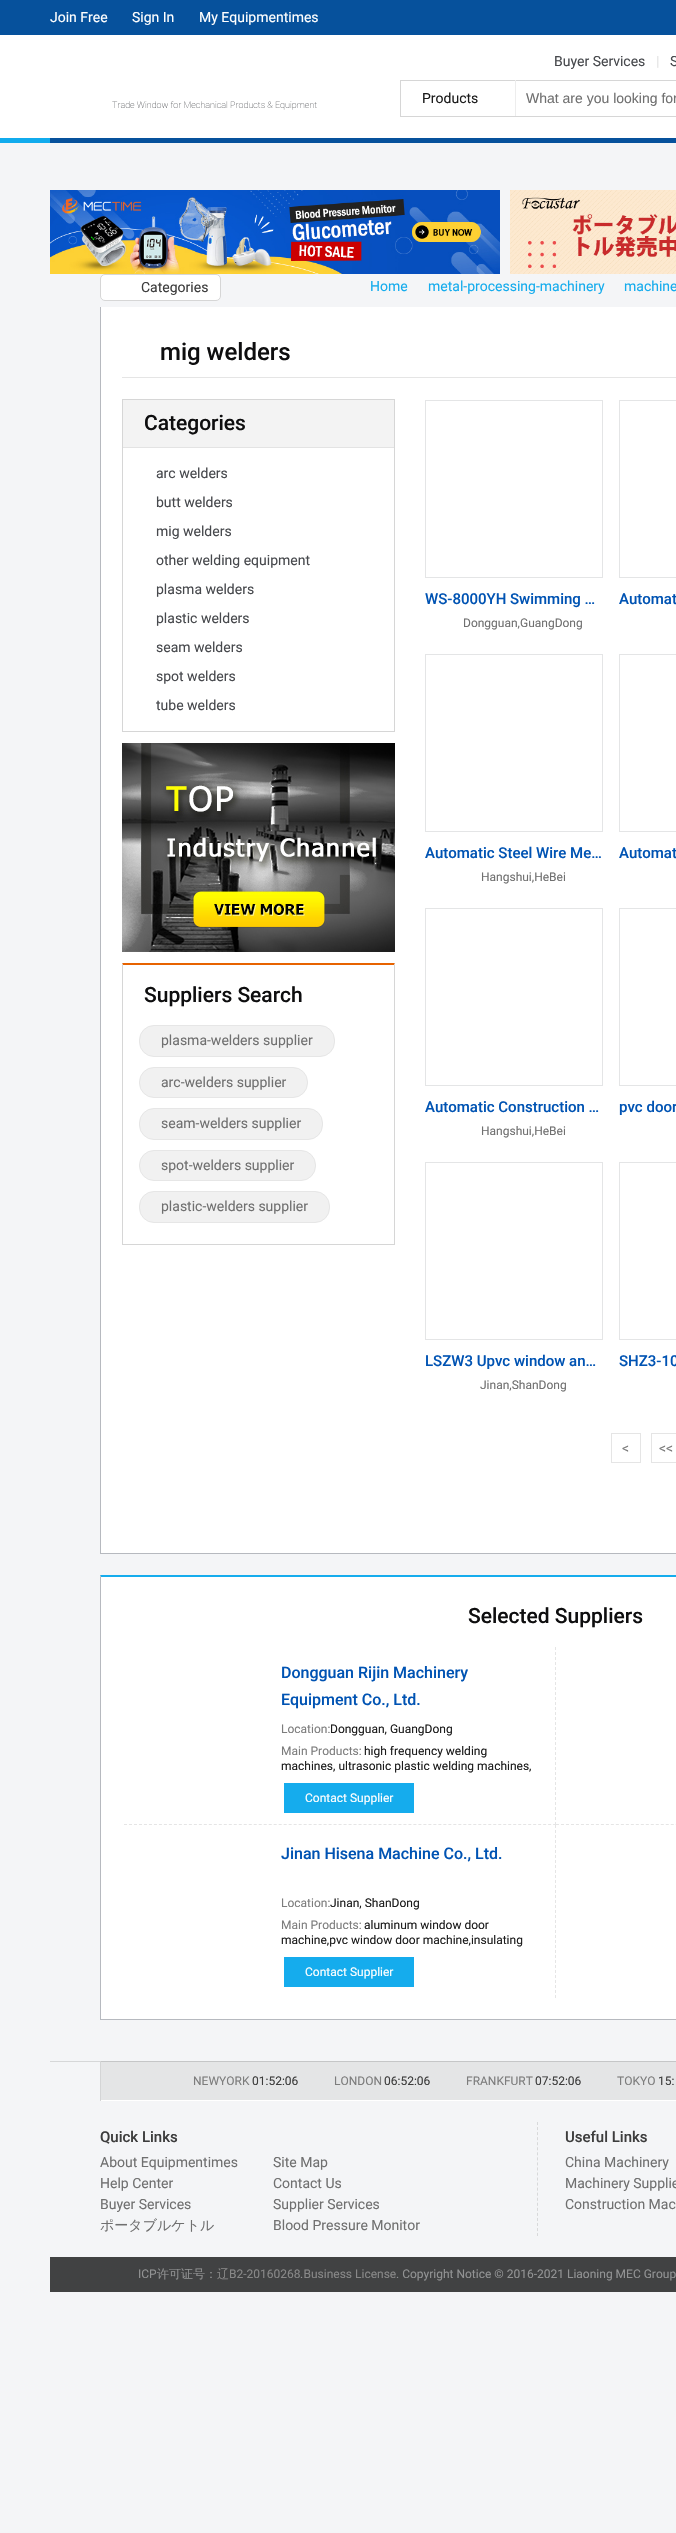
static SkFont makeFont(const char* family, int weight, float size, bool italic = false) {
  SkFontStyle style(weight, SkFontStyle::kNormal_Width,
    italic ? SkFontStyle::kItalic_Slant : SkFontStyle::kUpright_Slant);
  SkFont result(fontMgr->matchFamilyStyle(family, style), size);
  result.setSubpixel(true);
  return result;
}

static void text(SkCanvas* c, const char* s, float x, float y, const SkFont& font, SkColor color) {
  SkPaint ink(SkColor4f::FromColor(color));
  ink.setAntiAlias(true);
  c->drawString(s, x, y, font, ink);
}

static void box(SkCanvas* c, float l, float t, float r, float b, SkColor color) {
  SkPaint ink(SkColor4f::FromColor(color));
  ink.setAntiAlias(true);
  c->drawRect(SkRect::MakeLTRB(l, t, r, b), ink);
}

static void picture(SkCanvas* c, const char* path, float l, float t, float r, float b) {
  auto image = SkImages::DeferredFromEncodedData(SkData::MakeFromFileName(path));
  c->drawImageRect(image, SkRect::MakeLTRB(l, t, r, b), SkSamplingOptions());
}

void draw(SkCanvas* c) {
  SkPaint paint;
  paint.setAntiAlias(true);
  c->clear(0xfff4f5f7);
  box(c, 0, 0, 676, 35, 0xff06519c);
  SkFont face1 = makeFont("Roboto", 400, 14);
  text(c, "Join Free", 50, 22, face1, 0xffffffff);
  text(c, "Sign In", 132, 22, face1, 0xffffffff);
  text(c, "My Equipmentimes", 199, 22, face1, 0xffffffff);
  box(c, 0, 35, 676, 138, 0xffffffff);
  SkFont face2 = makeFont("Roboto", 100, 9);
  text(c, "Trade Window for Mechanical Products & Equipment", 112, 108, face2, 0xff47494d);
  text(c, "Buyer Services", 554, 66, face1, 0xff47494d);
  text(c, "|", 656, 66, face1, 0xffe5e5e5);
  text(c, "S", 670, 66, face1, 0xff47494d);
  box(c, 400, 80, 676, 81, 0xffd6d6d6);
  box(c, 515, 80, 516, 117, 0xffededed);
  box(c, 400, 116, 516, 117, 0xffd6d6d6);
  box(c, 400, 80, 401, 117, 0xffd6d6d6);
  text(c, "Products", 422, 103, face1, 0xff1c1c1c);
  box(c, 516, 116, 676, 117, 0xffd6d6d6);
  SkFont face3 = makeFont("Liberation Sans", 400, 14);
  text(c, "What are you looking for", 526, 103, face3, 0xff707070);
  box(c, 0, 138, 50, 143, 0xff11abed);
  box(c, 50, 138, 676, 143, 0xff06519c);
  picture(c, "img_01.png", 50, 190, 500, 274);
  picture(c, "img_02.png", 510, 190, 676, 274);
  paint.setColor(0xffffffff);
  c->drawRoundRect(SkRect::MakeLTRB(100.5f, 274.5f, 220.5f, 300.5f), 4.5f, 4.5f, paint);
  paint.setStyle(SkPaint::kStroke_Style);
  paint.setStrokeWidth(1);
  paint.setColor(0xffd6d6d6);
  c->drawRoundRect(SkRect::MakeLTRB(100.5f, 274.5f, 220.5f, 300.5f), 4.5f, 4.5f, paint);
  text(c, "Categories", 141, 292, face1, 0xff3d3d3d);
  text(c, "Home", 370, 291, face1, 0xff15aced);
  text(c, "metal-processing-machinery", 428, 291, face1, 0xff15aced);
  text(c, "machine", 624, 291, face1, 0xff15aced);
  box(c, 101, 307, 676, 1553, 0xffffffff);
  box(c, 100, 1553, 676, 1554, 0xffb6b9bf);
  box(c, 100, 307, 101, 1554, 0xffb6b9bf);
  box(c, 122, 377, 676, 378, 0xffe5e5e5);
  SkFont face4 = makeFont("Roboto", 500, 24);
  text(c, "mig welders", 160, 360, face4, 0xff0e0e0f);
  c->drawRect(SkRect::MakeLTRB(122.5f, 399.5f, 394.5f, 731.5f), paint);
  box(c, 123, 400, 394, 447, 0xfff3f3f3);
  box(c, 123, 447, 394, 448, 0xffe3e3e3);
  SkFont face5 = makeFont("Roboto", 500, 21);
  text(c, "Categories", 144, 430, face5, 0xff0e0e0f);
  text(c, "arc welders", 156, 478, face1, 0xff47494d);
  text(c, "butt welders", 156, 507, face1, 0xff47494d);
  text(c, "mig welders", 156, 536, face1, 0xff47494d);
  text(c, "other welding equipment", 156, 565, face1, 0xff47494d);
  text(c, "plasma welders", 156, 594, face1, 0xff47494d);
  text(c, "plastic welders", 156, 623, face1, 0xff47494d);
  text(c, "seam welders", 156, 652, face1, 0xff47494d);
  text(c, "spot welders", 156, 681, face1, 0xff47494d);
  text(c, "tube welders", 156, 710, face1, 0xff47494d);
  picture(c, "img_03.png", 122, 743, 395, 952);
  paint.setStyle(SkPaint::kFill_Style);
  paint.setColor(0xffe76300);
  c->drawPath(SkPathBuilder().moveTo(122, 963).lineTo(395, 963).lineTo(394, 965).lineTo(123, 965).close().detach(), paint);
  paint.setColor(0xffd6d6d6);
  c->drawPath(SkPathBuilder().moveTo(395, 963).lineTo(395, 1245).lineTo(394, 1244).lineTo(394, 965).close().detach(), paint);
  box(c, 122, 1244, 395, 1245, 0xffd6d6d6);
  c->drawPath(SkPathBuilder().moveTo(122, 1245).lineTo(122, 963).lineTo(123, 965).lineTo(123, 1244).close().detach(), paint);
  text(c, "Suppliers Search", 144, 1002, face5, 0xff0e0e0f);
  paint.setColor(0xfff1f1f1);
  c->drawRoundRect(SkRect::MakeLTRB(139.5f, 1025.5f, 334.5f, 1056.5f), 14.5f, 14.5f, paint);
  paint.setStyle(SkPaint::kStroke_Style);
  paint.setColor(0xffe6e6e6);
  c->drawRoundRect(SkRect::MakeLTRB(139.5f, 1025.5f, 334.5f, 1056.5f), 14.5f, 14.5f, paint);
  text(c, "plasma-welders supplier", 161, 1045, face1, 0xff707070);
  paint.setStyle(SkPaint::kFill_Style);
  paint.setColor(0xfff1f1f1);
  c->drawRoundRect(SkRect::MakeLTRB(139.5f, 1067.5f, 307.5f, 1097.5f), 14.5f, 14.5f, paint);
  paint.setStyle(SkPaint::kStroke_Style);
  paint.setColor(0xffe6e6e6);
  c->drawRoundRect(SkRect::MakeLTRB(139.5f, 1067.5f, 307.5f, 1097.5f), 14.5f, 14.5f, paint);
  text(c, "arc-welders supplier", 161, 1087, face1, 0xff707070);
  paint.setStyle(SkPaint::kFill_Style);
  paint.setColor(0xfff1f1f1);
  c->drawRoundRect(SkRect::MakeLTRB(139.5f, 1108.5f, 322.5f, 1139.5f), 14.5f, 14.5f, paint);
  paint.setStyle(SkPaint::kStroke_Style);
  paint.setColor(0xffe6e6e6);
  c->drawRoundRect(SkRect::MakeLTRB(139.5f, 1108.5f, 322.5f, 1139.5f), 14.5f, 14.5f, paint);
  text(c, "seam-welders supplier", 161, 1128, face1, 0xff707070);
  paint.setStyle(SkPaint::kFill_Style);
  paint.setColor(0xfff1f1f1);
  c->drawRoundRect(SkRect::MakeLTRB(139.5f, 1150.5f, 315.5f, 1180.5f), 14.5f, 14.5f, paint);
  paint.setStyle(SkPaint::kStroke_Style);
  paint.setColor(0xffe6e6e6);
  c->drawRoundRect(SkRect::MakeLTRB(139.5f, 1150.5f, 315.5f, 1180.5f), 14.5f, 14.5f, paint);
  text(c, "spot-welders supplier", 161, 1170, face1, 0xff707070);
  paint.setStyle(SkPaint::kFill_Style);
  paint.setColor(0xfff1f1f1);
  c->drawRoundRect(SkRect::MakeLTRB(139.5f, 1191.5f, 329.5f, 1222.5f), 14.5f, 14.5f, paint);
  paint.setStyle(SkPaint::kStroke_Style);
  paint.setColor(0xffe6e6e6);
  c->drawRoundRect(SkRect::MakeLTRB(139.5f, 1191.5f, 329.5f, 1222.5f), 14.5f, 14.5f, paint);
  text(c, "plastic-welders supplier", 161, 1211, face1, 0xff707070);
  paint.setColor(0xffe4e5e6);
  c->drawRect(SkRect::MakeLTRB(425.5f, 400.5f, 602.5f, 577.5f), paint);
  SkFont face6 = makeFont("Roboto", 500, 15);
  text(c, "WS-8000YH Swimming …", 425, 604, face6, 0xff0053b3);
  SkFont face7 = makeFont("Roboto", 400, 12);
  text(c, "Dongguan,GuangDong", 463, 627, face7, 0xff707070);
  c->drawRect(SkRect::MakeLTRB(619.5f, 400.5f, 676.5f, 577.5f), paint);
  text(c, "Automat", 619, 604, face6, 0xff0053b3);
  c->drawRect(SkRect::MakeLTRB(425.5f, 654.5f, 602.5f, 831.5f), paint);
  text(c, "Automatic Steel Wire Me…", 425, 858, face6, 0xff0053b3);
  text(c, "Hangshui,HeBei", 481, 881, face7, 0xff707070);
  c->drawRect(SkRect::MakeLTRB(619.5f, 654.5f, 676.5f, 831.5f), paint);
  text(c, "Automat", 619, 858, face6, 0xff0053b3);
  c->drawRect(SkRect::MakeLTRB(425.5f, 908.5f, 602.5f, 1085.5f), paint);
  text(c, "Automatic Construction …", 425, 1112, face6, 0xff0053b3);
  text(c, "Hangshui,HeBei", 481, 1135, face7, 0xff707070);
  c->drawRect(SkRect::MakeLTRB(619.5f, 908.5f, 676.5f, 1085.5f), paint);
  text(c, "pvc door", 619, 1112, face6, 0xff0053b3);
  c->drawRect(SkRect::MakeLTRB(425.5f, 1162.5f, 602.5f, 1339.5f), paint);
  text(c, "LSZW3 Upvc window an…", 425, 1366, face6, 0xff0053b3);
  text(c, "Jinan,ShanDong", 480, 1389, face7, 0xff707070);
  c->drawRect(SkRect::MakeLTRB(619.5f, 1162.5f, 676.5f, 1339.5f), paint);
  text(c, "SHZ3-10", 619, 1366, face6, 0xff0053b3);
  paint.setColor(0xffe5e5e5);
  c->drawRect(SkRect::MakeLTRB(611.5f, 1433.5f, 640.5f, 1462.5f), paint);
  text(c, "<", 622, 1453, face1, 0xff7d7d7d);
  c->drawRect(SkRect::MakeLTRB(651.5f, 1433.5f, 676.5f, 1462.5f), paint);
  text(c, "<<", 659, 1453, face1, 0xff7d7d7d);
  box(c, 101, 1577, 676, 2019, 0xffffffff);
  paint.setStyle(SkPaint::kFill_Style);
  paint.setColor(0xff15aced);
  c->drawPath(SkPathBuilder().moveTo(100, 1575).lineTo(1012, 1575).lineTo(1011, 1577).lineTo(101, 1577).close().detach(), paint);
  box(c, 100, 2019, 676, 2020, 0xffb6b9bf);
  paint.setColor(0xffb6b9bf);
  c->drawPath(SkPathBuilder().moveTo(100, 2020).lineTo(100, 1575).lineTo(101, 1577).lineTo(101, 2019).close().detach(), paint);
  text(c, "Selected Suppliers", 468, 1623, face5, 0xff0e0e0f);
  paint.setStyle(SkPaint::kStroke_Style);
  paint.setColor(0xffe5e5e5);
  paint.setPathEffect(SkDashPathEffect::Make({{3, 2}}, 0));
  c->drawPath(SkPathBuilder().moveTo(555.5f, 1647).lineTo(555.5f, 1825).detach(), paint);
  paint.setPathEffect(nullptr);
  paint.setPathEffect(SkDashPathEffect::Make({{3, 1.99f}}, 0));
  c->drawPath(SkPathBuilder().moveTo(124, 1824.5f).lineTo(556, 1824.5f).detach(), paint);
  paint.setPathEffect(nullptr);
  SkFont face8 = makeFont("Roboto", 500, 16);
  text(c, "Dongguan Rijin Machinery", 281, 1678, face8, 0xff0053b3);
  text(c, "Equipment Co., Ltd.", 281, 1705, face8, 0xff0053b3);
  text(c, "Location:", 281, 1733, face7, 0xff7d7d7d);
  text(c, "Dongguan, GuangDong", 330, 1733, face7, 0xff1c1c1c);
  text(c, "Main Products:", 281, 1755, face7, 0xff7d7d7d);
  text(c, "high frequency welding", 364, 1755, face7, 0xff1c1c1c);
  text(c, "machines, ultrasonic plastic welding machines,", 281, 1770, face7, 0xff1c1c1c);
  box(c, 284, 1783, 414, 1813, 0xff15aced);
  text(c, "Contact Supplier", 305, 1802, face7, 0xffffffff);
  paint.setPathEffect(SkDashPathEffect::Make({{3, 1.99f}}, 0));
  c->drawPath(SkPathBuilder().moveTo(556, 1824.5f).lineTo(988, 1824.5f).detach(), paint);
  paint.setPathEffect(nullptr);
  paint.setPathEffect(SkDashPathEffect::Make({{3, 2}}, 0));
  c->drawPath(SkPathBuilder().moveTo(555.5f, 1825).lineTo(555.5f, 1998).detach(), paint);
  paint.setPathEffect(nullptr);
  text(c, "Jinan Hisena Machine Co., Ltd.", 281, 1859, face8, 0xff0053b3);
  text(c, "Location:", 281, 1907, face7, 0xff7d7d7d);
  text(c, "Jinan, ShanDong", 330, 1907, face7, 0xff1c1c1c);
  text(c, "Main Products:", 281, 1929, face7, 0xff7d7d7d);
  text(c, "aluminum window door", 364, 1929, face7, 0xff1c1c1c);
  text(c, "machine,pvc window door machine,insulating", 281, 1944, face7, 0xff1c1c1c);
  box(c, 284, 1957, 414, 1987, 0xff15aced);
  text(c, "Contact Supplier", 305, 1976, face7, 0xffffffff);
  box(c, 50, 2061, 100, 2062, 0xffd6d7d8);
  box(c, 101, 2062, 676, 2100, 0xffe4e5e6);
  box(c, 100, 2061, 676, 2062, 0xffc5c6c7);
  box(c, 100, 2100, 676, 2101, 0xffffffff);
  box(c, 100, 2061, 101, 2101, 0xffd4d5d6);
  text(c, "NEWYORK", 193, 2085, face7, 0xff7d7d7d);
  text(c, "01:52:06", 252, 2085, face7, 0xff3d3d3d);
  text(c, "LONDON", 334, 2085, face7, 0xff7d7d7d);
  text(c, "06:52:06", 384, 2085, face7, 0xff3d3d3d);
  text(c, "FRANKFURT", 466, 2085, face7, 0xff7d7d7d);
  text(c, "07:52:06", 535, 2085, face7, 0xff3d3d3d);
  text(c, "TOKYO", 617, 2085, face7, 0xff7d7d7d);
  text(c, "15:", 658, 2085, face7, 0xff3d3d3d);
  paint.setColor(0xffd8d9da);
  paint.setPathEffect(SkDashPathEffect::Make({{3, 2.05f}}, 0));
  c->drawPath(SkPathBuilder().moveTo(537.5f, 2122).lineTo(537.5f, 2236).detach(), paint);
  paint.setPathEffect(nullptr);
  text(c, "Quick Links", 100, 2142, face6, 0xff3d3d3d);
  text(c, "About Equipmentimes", 100, 2167, face1, 0xff707070);
  text(c, "Site Map", 273, 2167, face1, 0xff707070);
  text(c, "Help Center", 100, 2188, face1, 0xff707070);
  text(c, "Contact Us", 273, 2188, face1, 0xff707070);
  text(c, "Buyer Services", 100, 2209, face1, 0xff707070);
  text(c, "Supplier Services", 273, 2209, face1, 0xff707070);
  SkFont face9 = makeFont("WenQuanYi Zen Hei", 500, 14);
  text(c, "ポータブルケトル", 100, 2230, face9, 0xff707070);
  text(c, "Blood Pressure Monitor", 273, 2230, face1, 0xff707070);
  text(c, "Useful Links", 565, 2142, face6, 0xff3d3d3d);
  text(c, "China Machinery", 565, 2167, face1, 0xff707070);
  text(c, "Machinery Supplie", 565, 2188, face1, 0xff707070);
  text(c, "Construction Mac", 565, 2209, face1, 0xff707070);
  box(c, 50, 2257, 676, 2292, 0xff414243);
  text(c, "ICP", 138, 2278, face7, 0xff929394);
  SkFont face10 = makeFont("WenQuanYi Zen Hei", 500, 12);
  text(c, "许可证号：", 157, 2278, face10, 0xff929394);
  text(c, "辽", 217, 2278, face10, 0xff888888);
  text(c, "B2-20160268 Business License", 229, 2278, face7, 0xff888888);
  text(c, ". Copyright Notice © 2016-2021 Liaoning MEC Group", 396, 2278, face7, 0xff929394);
  text(c, ".", 300, 2278, face7, 0xff929394);
}
